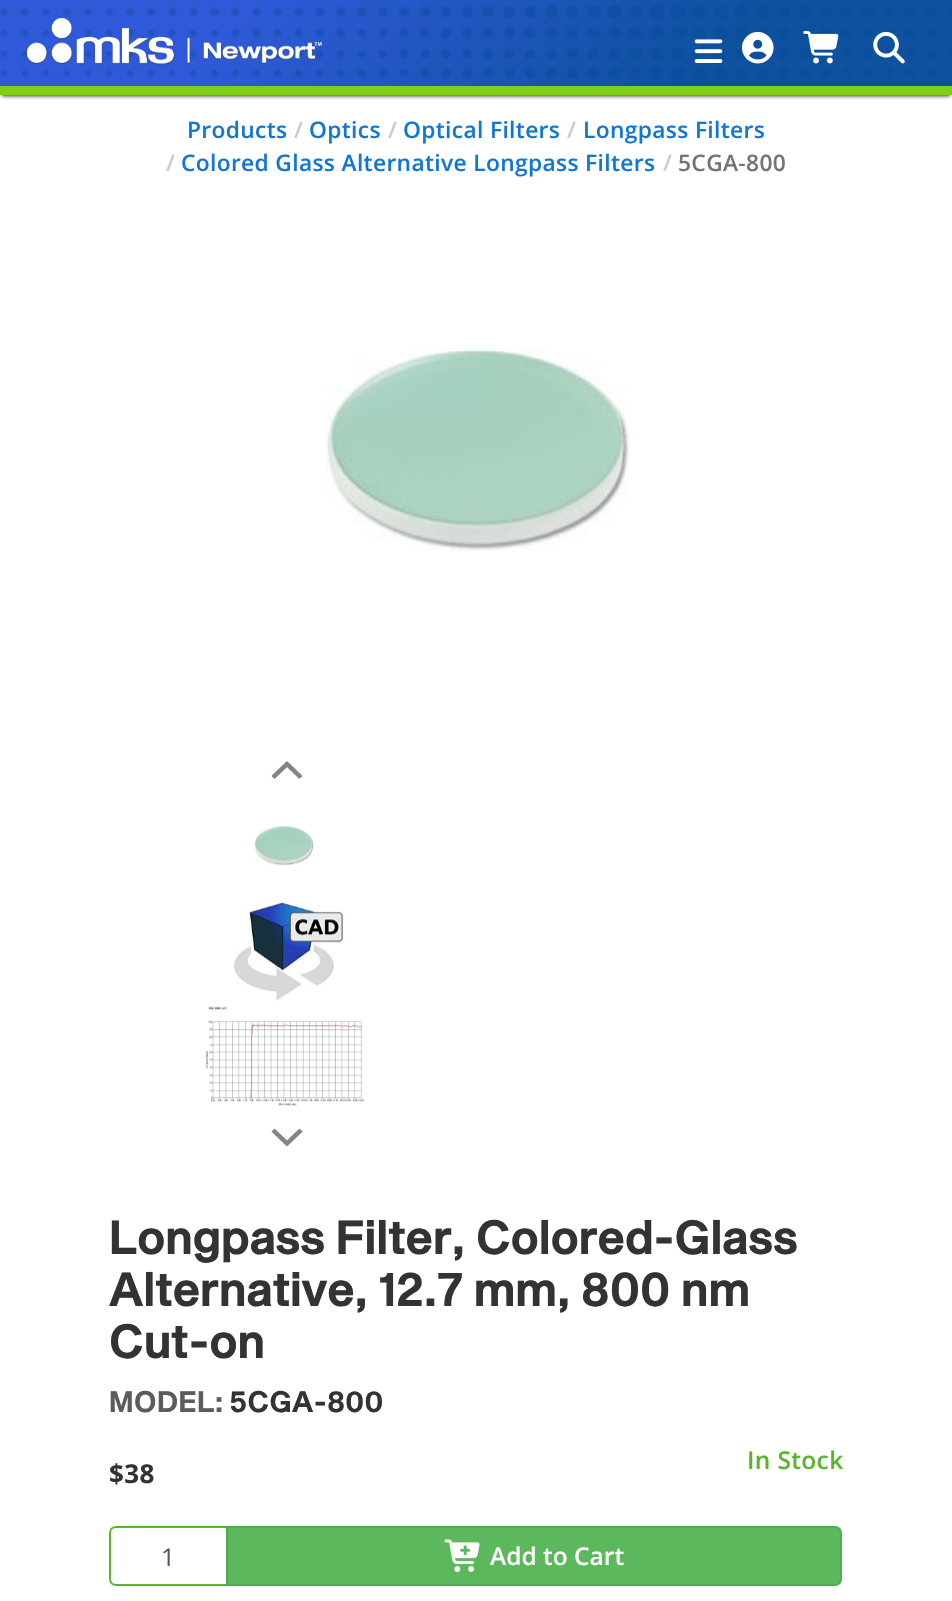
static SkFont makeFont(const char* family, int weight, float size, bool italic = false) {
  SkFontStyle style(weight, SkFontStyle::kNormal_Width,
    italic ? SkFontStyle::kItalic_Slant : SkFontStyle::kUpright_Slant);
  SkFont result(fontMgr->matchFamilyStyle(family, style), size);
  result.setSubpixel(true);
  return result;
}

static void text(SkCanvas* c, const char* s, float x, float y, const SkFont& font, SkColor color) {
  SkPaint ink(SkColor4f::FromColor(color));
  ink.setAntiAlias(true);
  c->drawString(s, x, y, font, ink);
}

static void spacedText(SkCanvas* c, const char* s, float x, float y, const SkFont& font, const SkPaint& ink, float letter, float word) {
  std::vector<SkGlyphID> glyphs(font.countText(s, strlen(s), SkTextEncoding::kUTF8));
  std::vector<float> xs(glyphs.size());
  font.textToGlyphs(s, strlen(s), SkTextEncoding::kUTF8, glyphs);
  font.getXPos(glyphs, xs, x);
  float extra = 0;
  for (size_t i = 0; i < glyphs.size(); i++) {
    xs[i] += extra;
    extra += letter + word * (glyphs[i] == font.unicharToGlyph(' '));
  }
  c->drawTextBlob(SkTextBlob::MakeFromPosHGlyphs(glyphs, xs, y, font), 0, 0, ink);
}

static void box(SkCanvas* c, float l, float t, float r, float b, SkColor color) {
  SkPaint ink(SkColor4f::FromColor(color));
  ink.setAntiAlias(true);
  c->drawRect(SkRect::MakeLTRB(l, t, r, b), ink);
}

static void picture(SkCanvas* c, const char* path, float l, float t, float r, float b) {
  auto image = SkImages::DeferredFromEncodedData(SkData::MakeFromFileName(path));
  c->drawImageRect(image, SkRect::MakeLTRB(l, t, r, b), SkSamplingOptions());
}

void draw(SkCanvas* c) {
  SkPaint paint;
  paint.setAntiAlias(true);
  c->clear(0xffffffff);
  paint.setColor(0xff333333);
  paint.setMaskFilter(SkMaskFilter::MakeBlur(kNormal_SkBlurStyle, 2));
  c->drawRect(SkRect::MakeLTRB(2, 5, 950, 96), paint);
  paint.setMaskFilter(nullptr);
  {
    const SkColor colors[] = {0xff2f59d8, 0xff0e519f};
    const float stops[] = {0.25f, 0.75f};
    const SkPoint ends[] = {{217, -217}, {735, 302}};
    paint.setShader(SkGradientShader::MakeLinear(ends, colors, stops, 2, SkTileMode::kClamp));
    paint.setAlpha(255);
  }
  c->drawRect(SkRect::MakeLTRB(0, 0, 952, 86), paint);
  box(c, 0, 86, 952, 95, 0xff80ce1a);
  picture(c, "img_01.png", 0, 4, 952, 80);
  picture(c, "img_02.png", 26, 18, 322, 65);
  picture(c, "img_03.png", 694, 39, 723, 63);
  picture(c, "img_04.png", 742, 31, 774, 64);
  picture(c, "img_05.png", 803, 30, 839, 64);
  picture(c, "img_06.png", 873, 31, 905, 64);
  SkFont face1 = makeFont("Open Sans", 600, 22.75f);
  paint.setShader(nullptr);
  paint.setColor(0xff1176d4);
  spacedText(c, "Products", 187, 138, face1, paint, 0.35f, 0);
  paint.setColor(0xffcccccc);
  spacedText(c, "/", 294, 138, face1, paint, 0.35f, 0);
  paint.setColor(0xff1176d4);
  spacedText(c, "Optics", 309, 138, face1, paint, 0.35f, 0);
  paint.setColor(0xffcccccc);
  spacedText(c, "/", 388, 138, face1, paint, 0.35f, 0);
  paint.setColor(0xff1176d4);
  spacedText(c, "Optical Filters", 403, 138, face1, paint, 0.35f, 0);
  paint.setColor(0xffcccccc);
  spacedText(c, "/", 567, 138, face1, paint, 0.35f, 0);
  paint.setColor(0xff1176d4);
  spacedText(c, "Longpass Filters", 583, 138, face1, paint, 0.35f, 0);
  paint.setColor(0xffcccccc);
  spacedText(c, "/", 166, 171, face1, paint, 0.35f, 0);
  paint.setColor(0xff1176d4);
  spacedText(c, "Colored Glass Alternative Longpass Filters", 181, 171, face1, paint, 0.35f, 0);
  paint.setColor(0xffcccccc);
  spacedText(c, "/", 663, 171, face1, paint, 0.35f, 0);
  paint.setColor(0xff747474);
  spacedText(c, "5CGA-800", 678, 171, face1, paint, 0.35f, 0);
  picture(c, "img_07.png", 326, 347, 630, 551);
  picture(c, "img_08.png", 271, 761, 303, 779);
  picture(c, "img_09.png", 254, 825, 314, 866);
  picture(c, "img_10.png", 234, 901, 345, 1001);
  picture(c, "img_11.png", 205, 1006, 364, 1107);
  picture(c, "img_12.png", 271, 1128, 303, 1147);
  SkFont face2 = makeFont("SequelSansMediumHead", 700, 45.3f);
  paint.setColor(0xff333333);
  spacedText(c, "Longpass Filter, Colored-Glass", 109, 1254, face2, paint, 1.25f, 0);
  spacedText(c, "Alternative, 12.7 mm, 800 nm", 109, 1306, face2, paint, 1.25f, 0);
  spacedText(c, "Cut-on", 109, 1358, face2, paint, 1.25f, 0);
  SkFont face3 = makeFont("SequelSansMediumHead", 700, 28);
  paint.setColor(0xff5c5c5c);
  spacedText(c, "MODEL:", 109, 1412, face3, paint, 1.25f, 0);
  paint.setColor(0xff333333);
  spacedText(c, "5CGA-800", 230, 1412, face3, paint, 1.25f, 0);
  SkFont face4 = makeFont("Open Sans", 600, 24.5f);
  paint.setColor(0xff57b729);
  spacedText(c, "In Stock", 747, 1469, face4, paint, 0.35f, 0);
  SkFont face5 = makeFont("Open Sans", 700, 26);
  paint.setColor(0xff333333);
  spacedText(c, "$38", 109, 1483, face5, paint, 0.35f, 0);
  paint.setStyle(SkPaint::kStroke_Style);
  paint.setStrokeWidth(2);
  paint.setColor(0xff57b729);
  c->drawPath(SkPathBuilder().moveTo(116, 1527).lineTo(227, 1527).lineTo(227, 1585).lineTo(116, 1585).cubicTo(112.5f, 1585, 110, 1582.5f, 110, 1579).lineTo(110, 1533).cubicTo(110, 1529.5f, 112.5f, 1527, 116, 1527).close().detach(), paint);
  SkFont face6 = makeFont("Open Sans", 400, 24.5f);
  text(c, "1", 161, 1566, face6, 0xff555555);
  paint.setStyle(SkPaint::kFill_Style);
  paint.setColor(0xff5cb85c);
  c->drawPath(SkPathBuilder().moveTo(227, 1527).lineTo(835, 1527).cubicTo(838.5f, 1527, 841, 1529.5f, 841, 1533).lineTo(841, 1579).cubicTo(841, 1582.5f, 838.5f, 1585, 835, 1585).lineTo(227, 1585).close().detach(), paint);
  paint.setStyle(SkPaint::kStroke_Style);
  paint.setColor(0xff4cae4c);
  c->drawPath(SkPathBuilder().moveTo(227, 1527).lineTo(835, 1527).cubicTo(838.5f, 1527, 841, 1529.5f, 841, 1533).lineTo(841, 1579).cubicTo(841, 1582.5f, 838.5f, 1585, 835, 1585).lineTo(227, 1585).close().detach(), paint);
  picture(c, "img_13.png", 444, 1539, 480, 1572);
  text(c, "Add to Cart", 490, 1565, face4, 0xffffffff);
}
